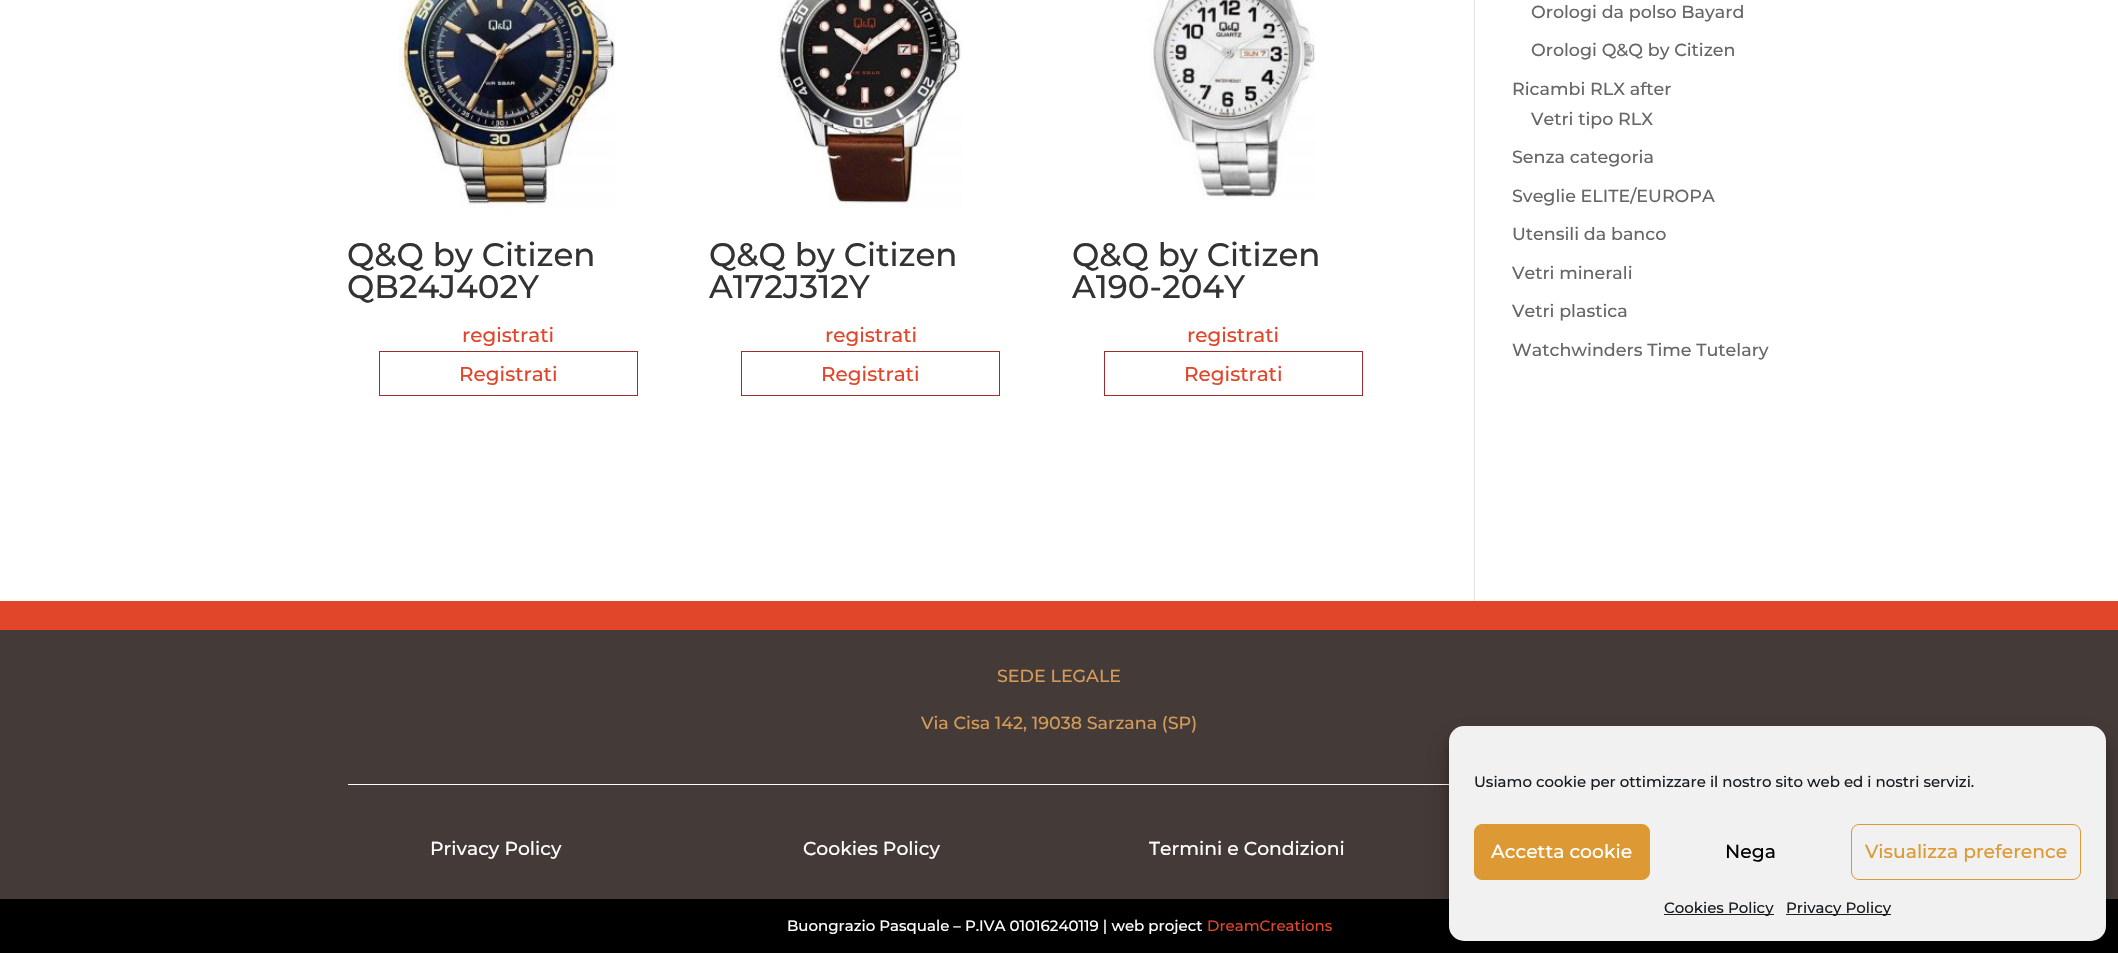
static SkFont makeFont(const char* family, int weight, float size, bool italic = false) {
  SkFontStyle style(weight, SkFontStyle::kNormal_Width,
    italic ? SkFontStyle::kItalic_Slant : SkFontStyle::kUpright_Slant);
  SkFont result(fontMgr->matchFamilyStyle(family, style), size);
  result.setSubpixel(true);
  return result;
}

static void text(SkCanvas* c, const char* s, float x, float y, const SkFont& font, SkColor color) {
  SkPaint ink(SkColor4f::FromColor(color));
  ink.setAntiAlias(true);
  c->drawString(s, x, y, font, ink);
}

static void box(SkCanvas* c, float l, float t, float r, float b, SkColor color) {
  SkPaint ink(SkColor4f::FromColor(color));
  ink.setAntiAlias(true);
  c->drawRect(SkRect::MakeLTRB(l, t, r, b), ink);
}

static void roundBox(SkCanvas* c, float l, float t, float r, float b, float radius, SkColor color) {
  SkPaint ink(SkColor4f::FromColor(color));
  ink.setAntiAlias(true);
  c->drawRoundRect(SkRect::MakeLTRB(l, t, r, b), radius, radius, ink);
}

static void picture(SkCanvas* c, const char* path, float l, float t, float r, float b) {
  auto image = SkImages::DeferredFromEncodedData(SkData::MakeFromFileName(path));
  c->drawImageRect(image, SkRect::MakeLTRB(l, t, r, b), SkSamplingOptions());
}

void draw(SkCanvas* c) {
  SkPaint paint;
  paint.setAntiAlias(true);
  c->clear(0xffffffff);
  box(c, 1474, 0, 1475, 601, 0xffe2e2e2);
  picture(c, "img_01.png", 398, 0, 615, 209);
  SkFont face1 = makeFont("Montserrat", 100, 32.5f);
  text(c, "Q&Q by Citizen", 347, 266, face1, 0xff333333);
  text(c, "QB24J402Y", 347, 298, face1, 0xff333333);
  SkFont face2 = makeFont("Montserrat", 100, 20);
  text(c, "registrati", 462, 342, face2, 0xffe1462a);
  paint.setStyle(SkPaint::kStroke_Style);
  paint.setStrokeWidth(1);
  paint.setColor(0xffa02c2c);
  c->drawRect(SkRect::MakeLTRB(379.5f, 351.5f, 637.5f, 395.5f), paint);
  text(c, "Registrati", 459, 381, face2, 0xffe1462a);
  picture(c, "img_02.png", 778, 0, 963, 209);
  text(c, "Q&Q by Citizen", 709, 266, face1, 0xff333333);
  text(c, "A172J312Y", 709, 298, face1, 0xff333333);
  text(c, "registrati", 825, 342, face2, 0xffe1462a);
  c->drawRect(SkRect::MakeLTRB(741.5f, 351.5f, 999.5f, 395.5f), paint);
  text(c, "Registrati", 821, 381, face2, 0xffe1462a);
  picture(c, "img_03.png", 1149, 0, 1316, 200);
  text(c, "Q&Q by Citizen", 1072, 266, face1, 0xff333333);
  text(c, "A190-204Y", 1072, 298, face1, 0xff333333);
  text(c, "registrati", 1187, 342, face2, 0xffe1462a);
  c->drawRect(SkRect::MakeLTRB(1104.5f, 351.5f, 1362.5f, 395.5f), paint);
  text(c, "Registrati", 1184, 381, face2, 0xffe1462a);
  SkFont face3 = makeFont("Montserrat", 100, 17.5f);
  text(c, "Orologi da polso Bayard", 1531, 18, face3, 0xff666666);
  text(c, "Orologi Q&Q by Citizen", 1531, 56, face3, 0xff666666);
  text(c, "Ricambi RLX after", 1512, 95, face3, 0xff666666);
  text(c, "Vetri tipo RLX", 1531, 125, face3, 0xff666666);
  text(c, "Senza categoria", 1512, 163, face3, 0xff666666);
  text(c, "Sveglie ELITE/EUROPA", 1512, 202, face3, 0xff666666);
  text(c, "Utensili da banco", 1512, 240, face3, 0xff666666);
  text(c, "Vetri minerali", 1512, 279, face3, 0xff666666);
  text(c, "Vetri plastica", 1512, 317, face3, 0xff666666);
  text(c, "Watchwinders Time Tutelary", 1512, 356, face3, 0xff666666);
  box(c, 0, 601, 2118, 630, 0xffe1462a);
  box(c, 0, 630, 2118, 899, 0xff443a37);
  text(c, "SEDE LEGALE", 997, 682, face3, 0xffd49b58);
  text(c, "Via Cisa 142, 19038 Sarzana (SP)", 921, 729, face3, 0xffd49b58);
  box(c, 348, 784, 1449, 785, 0xffffffff);
  SkFont face4 = makeFont("Montserrat", 100, 18.75f);
  text(c, "Privacy Policy", 430, 855, face4, 0xffffffff);
  text(c, "Cookies Policy", 803, 855, face4, 0xffffffff);
  text(c, "Termini e Condizioni", 1149, 855, face4, 0xffffffff);
  box(c, 0, 899, 2118, 953, 0xff000000);
  SkFont face5 = makeFont("Montserrat", 100, 15);
  text(c, "Buongrazio Pasquale – P.IVA 01016240119 | web project", 787, 931, face5, 0xffffffff);
  text(c, "DreamCreations", 1207, 931, face5, 0xffe1462a);
  paint.setStyle(SkPaint::kFill_Style);
  paint.setColor(0x3b000000);
  paint.setMaskFilter(SkMaskFilter::MakeBlur(kNormal_SkBlurStyle, 4));
  c->drawRoundRect(SkRect::MakeLTRB(1449, 734, 2106, 949), 15, 15, paint);
  paint.setMaskFilter(nullptr);
  paint.setColor(0x30000000);
  paint.setMaskFilter(SkMaskFilter::MakeBlur(kNormal_SkBlurStyle, 12.5f));
  c->drawRoundRect(SkRect::MakeLTRB(1449, 739, 2106, 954), 15, 15, paint);
  paint.setMaskFilter(nullptr);
  roundBox(c, 1449, 726, 2106, 941, 15, 0xfff1f1f1);
  text(c, "Usiamo cookie per ottimizzare il nostro sito web ed i nostri servizi.", 1474, 787, face5, 0xff191e23);
  paint.setColor(0xffdd9933);
  c->drawRoundRect(SkRect::MakeLTRB(1474.5f, 824.5f, 1649.5f, 879.5f), 7.5f, 7.5f, paint);
  paint.setStyle(SkPaint::kStroke_Style);
  c->drawRoundRect(SkRect::MakeLTRB(1474.5f, 824.5f, 1649.5f, 879.5f), 7.5f, 7.5f, paint);
  text(c, "Accetta cookie", 1491, 858, face4, 0xffffffff);
  text(c, "Nega", 1725, 858, face4, 0xff000000);
  c->drawRoundRect(SkRect::MakeLTRB(1851.5f, 824.5f, 2080.5f, 879.5f), 7.5f, 7.5f, paint);
  text(c, "Visualizza preference", 1865, 858, face4, 0xffdd9933);
  box(c, 1664, 914, 1774, 915, 0xff191e23);
  text(c, "Cookies Policy", 1664, 913, face5, 0xff191e23);
  box(c, 1786, 914, 1891, 915, 0xff191e23);
  text(c, "Privacy Policy", 1786, 913, face5, 0xff191e23);
}
